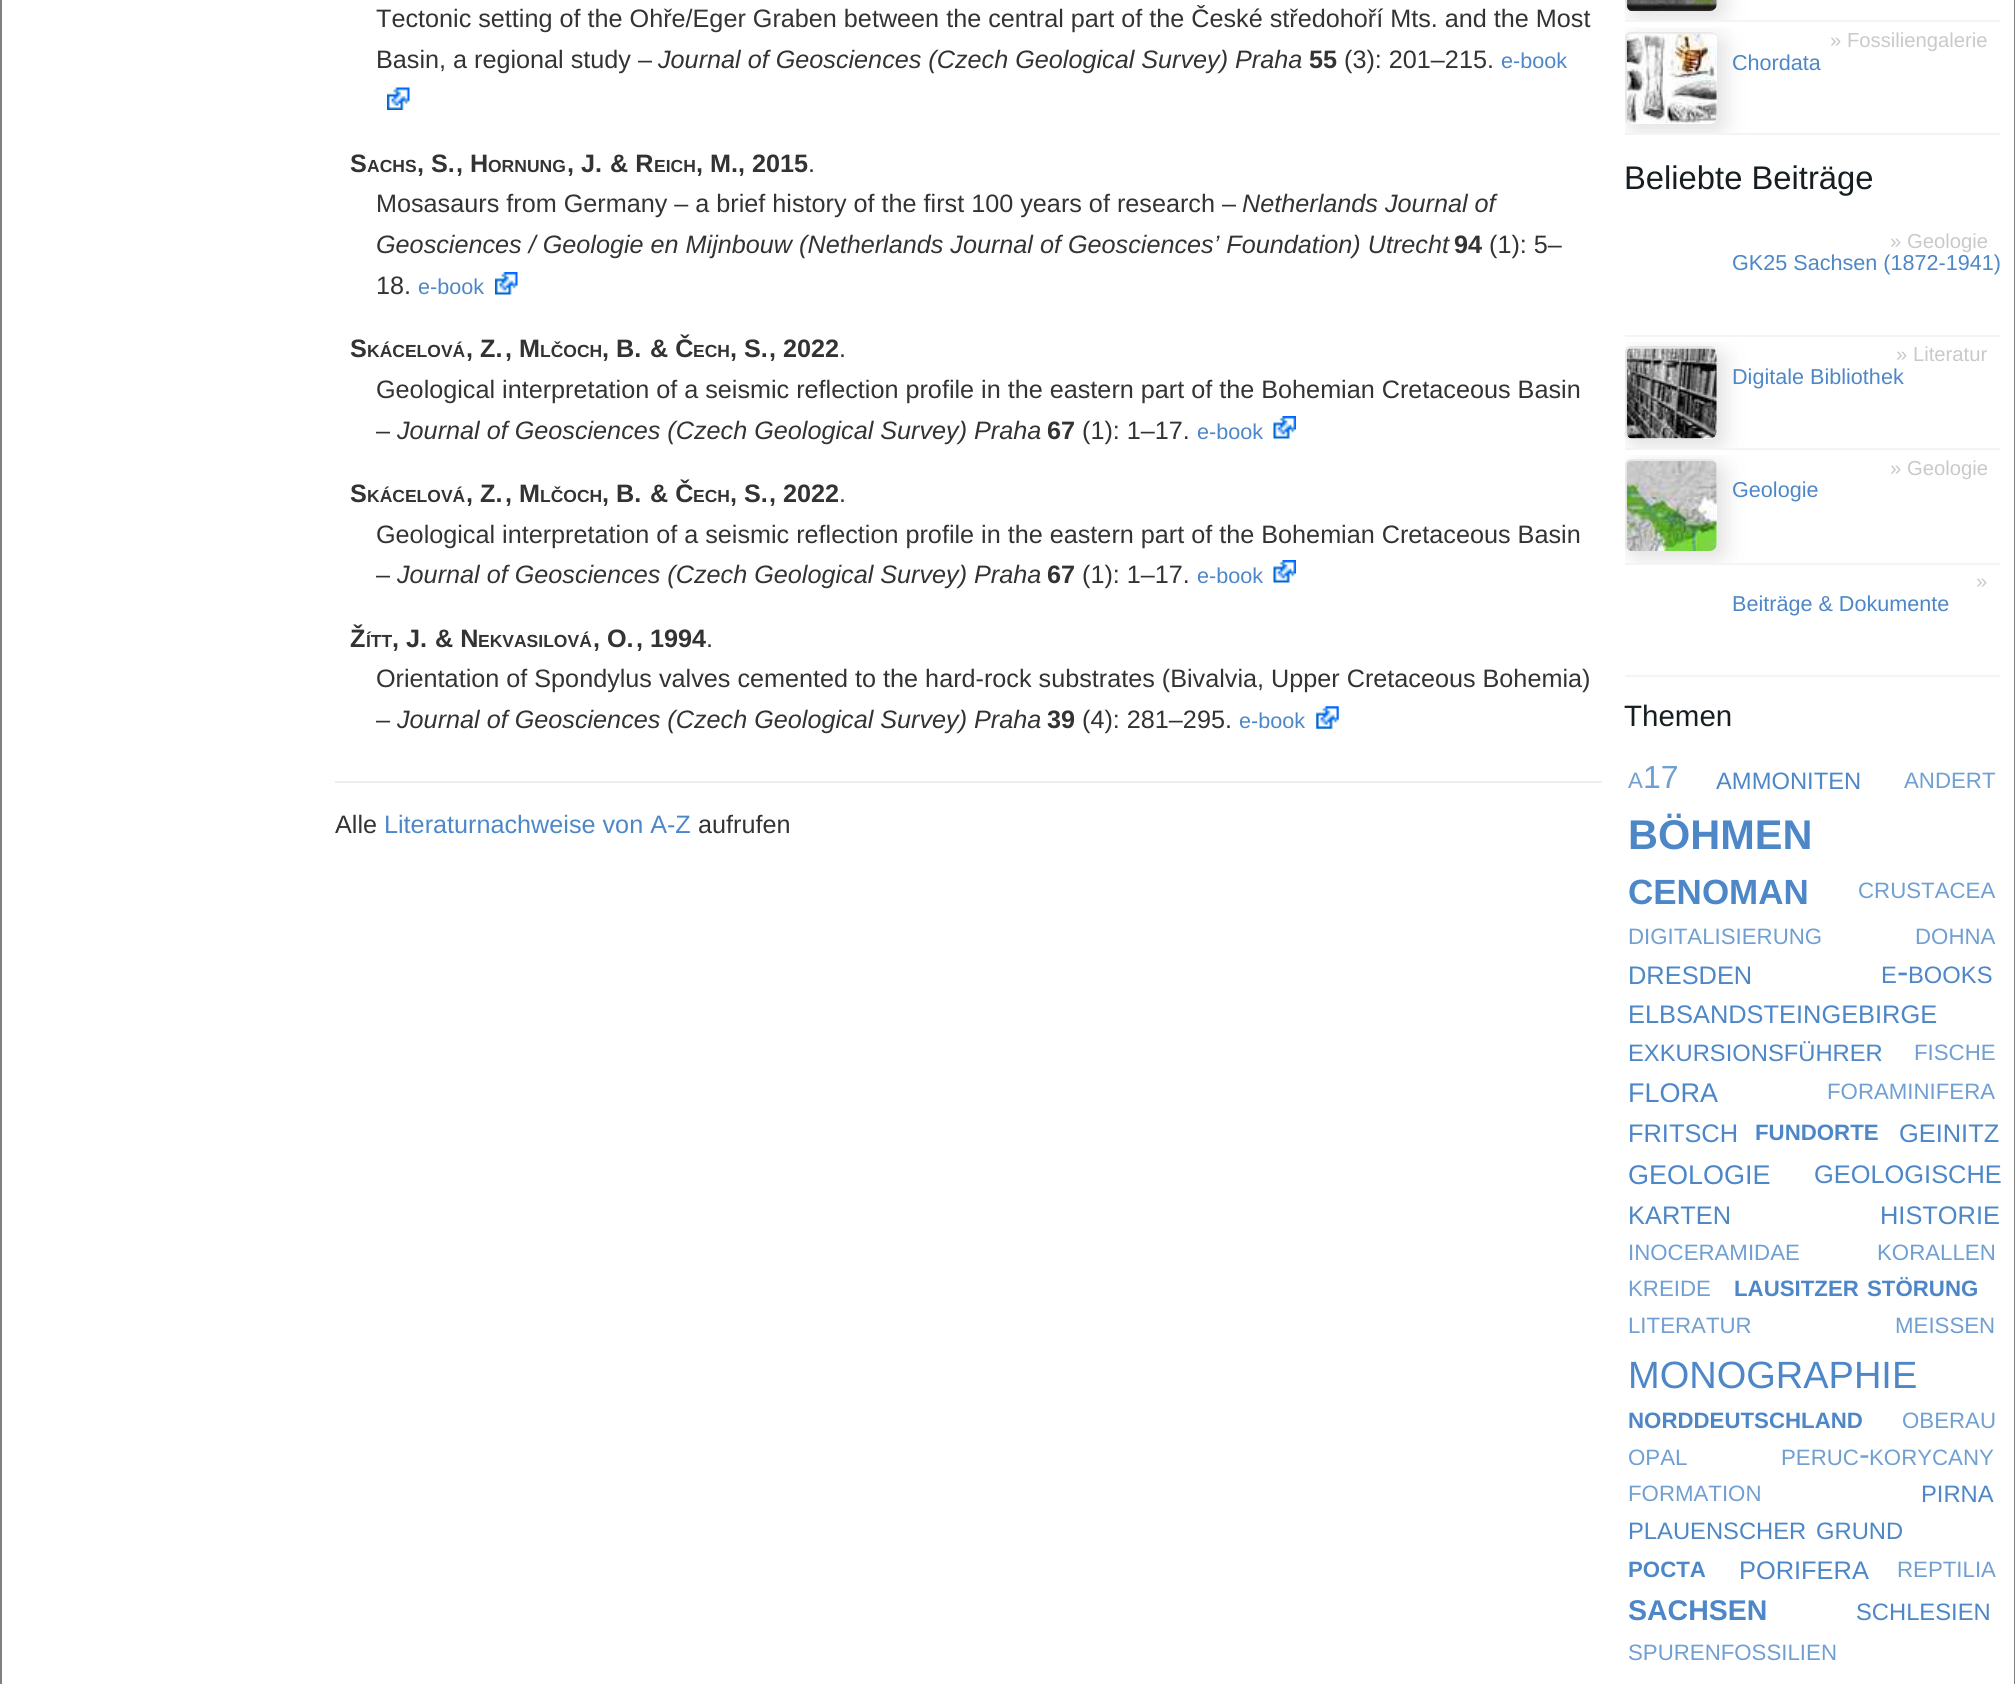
#include <cairo.h>
#include <math.h>
#include <stddef.h>

static cairo_t *c;
static void C(unsigned color){cairo_set_source_rgb(c, (color >> 16) / 255.0, (color >> 8 & 255) / 255.0, (color & 255) / 255.0);}
static void F(const char *family, double size, int italic, int bold){cairo_select_font_face(c, family, italic ? CAIRO_FONT_SLANT_ITALIC : CAIRO_FONT_SLANT_NORMAL,bold ? CAIRO_FONT_WEIGHT_BOLD : CAIRO_FONT_WEIGHT_NORMAL);cairo_set_font_size(c, size);}
static void T(double x, double y, const char *s){cairo_move_to(c, x, y);cairo_show_text(c, s);}
static void R(double x, double y, double w, double h){cairo_rectangle(c, x, y, w, h);cairo_fill(c);}
static void Q(double x, double y, double w, double h, double r){cairo_new_sub_path(c);cairo_arc(c, x + w - r, y + h - r, r, 0, M_PI / 2);cairo_arc(c, x + r, y + h - r, r, M_PI / 2, M_PI);cairo_arc(c, x + r, y + r, r, M_PI, 1.5 * M_PI);cairo_arc(c, x + w - r, y + r, r, 1.5 * M_PI, 2 * M_PI);cairo_close_path(c);}
static void S(double x, double y, double w, double h, double r, double blur, double alpha){cairo_push_group_with_content(c, CAIRO_CONTENT_ALPHA);cairo_set_operator(c, CAIRO_OPERATOR_SOURCE);for (int i = 15; i >= -15 && fmin(w, h) + blur * i / 3 > 0; i -= 2) {double e = blur * i / 6;cairo_set_source_rgba(c, 0, 0, 0, alpha * erfc((i - 1) / 8.5) / 2);Q(x - e, y - e, w + 2 * e, h + 2 * e, fmax(0, fmin(r + e + blur * .6, fmin(w, h) / 2 + e)));cairo_fill(c);}cairo_pattern_t *soft = cairo_pop_group(c);cairo_mask(c, soft);cairo_pattern_destroy(soft);}
static void I(const char *path, double x, double y, double w, double h){cairo_surface_t *image = cairo_image_surface_create_from_png(path);cairo_save(c);cairo_set_source_surface(c, image, x, y);cairo_rectangle(c, x, y, w, h);cairo_fill(c);cairo_restore(c);cairo_surface_destroy(image);}
int main(void) {
cairo_surface_t *surface = cairo_image_surface_create(CAIRO_FORMAT_RGB24, 2015, 1684);
c = cairo_create(surface);
cairo_font_options_t *options = cairo_font_options_create();
cairo_font_options_set_hint_metrics(options, CAIRO_HINT_METRICS_OFF);
cairo_font_options_set_hint_style(options, CAIRO_HINT_STYLE_NONE);
cairo_set_font_options(c, options);
cairo_set_miter_limit(c, 4);
C(0xffffff);
cairo_paint(c);
C(0x808080);
R(2014,0,1,1684);
R(0,0,2,1684);
F("Liberation Sans",25.2,0,0);
C(0x333333);
T(376,27,"Tectonic setting of the Ohře/Eger Graben between the central part of the České středohoří Mts. and the Most");
T(376,68,"Basin, a regional study –");
F("Liberation Sans",25.2,1,0);
T(658,68,"Journal of Geosciences (Czech Geological Survey) Praha");
F("Liberation Sans",25.2,0,1);
T(1309,68,"55");
F("Liberation Sans",25.2,0,0);
T(1344,68,"(3): 201–215.");
F("Liberation Sans",21.6,0,0);
C(0x4d87c7);
T(1501,68,"e-book");
I("1.png",387,87,23,23);
F("Liberation Sans",25.2,0,1);
C(0x333333);
T(350,172,"S");
F("Liberation Sans",17.5,0,1);
T(367,172,"ACHS");
F("Liberation Sans",25.2,0,1);
T(417,172,", S.");
T(456,172,", H");
F("Liberation Sans",17.5,0,1);
T(488,172,"ORNUNG");
F("Liberation Sans",25.2,0,1);
T(567,172,", J.");
T(610,172,"& R");
F("Liberation Sans",17.5,0,1);
T(654,172,"EICH");
F("Liberation Sans",25.2,0,1);
T(696,172,", M.");
T(738,172,", 2015");
F("Liberation Sans",25.2,0,0);
T(808,172,".");
T(376,212,"Mosasaurs from Germany – a brief history of the first 100 years of research –");
F("Liberation Sans",25.2,1,0);
T(1242,212,"Netherlands Journal of");
T(376,253,"Geosciences / Geologie en Mijnbouw (Netherlands Journal of Geosciences’ Foundation) Utrecht");
F("Liberation Sans",25.2,0,1);
T(1454,253,"94");
F("Liberation Sans",25.2,0,0);
T(1489,253,"(1): 5–");
T(376,294,"18.");
F("Liberation Sans",21.6,0,0);
C(0x4d87c7);
T(418,294,"e-book");
I("2.png",495,272,23,23);
F("Liberation Sans",25.2,0,1);
C(0x333333);
T(350,357,"S");
F("Liberation Sans",17.5,0,1);
T(367,357,"KÁCELOVÁ");
F("Liberation Sans",25.2,0,1);
T(466,357,", Z.");
T(505,357,", M");
F("Liberation Sans",17.5,0,1);
T(540,357,"LČOCH");
F("Liberation Sans",25.2,0,1);
T(602,357,", B.");
T(650,357,"& Č");
F("Liberation Sans",17.5,0,1);
T(693,357,"ECH");
F("Liberation Sans",25.2,0,1);
T(730,357,", S.");
T(769,357,", 2022");
F("Liberation Sans",25.2,0,0);
T(839,357,".");
T(376,398,"Geological interpretation of a seismic reflection profile in the eastern part of the Bohemian Cretaceous Basin");
T(376,439,"–");
F("Liberation Sans",25.2,1,0);
T(397,439,"Journal of Geosciences (Czech Geological Survey) Praha");
F("Liberation Sans",25.2,0,1);
T(1047,439,"67");
F("Liberation Sans",25.2,0,0);
T(1082,439,"(1): 1–17.");
F("Liberation Sans",21.6,0,0);
C(0x4d87c7);
T(1197,439,"e-book");
I("3.png",1273,416,23,23);
F("Liberation Sans",25.2,0,1);
C(0x333333);
T(350,502,"S");
F("Liberation Sans",17.5,0,1);
T(367,502,"KÁCELOVÁ");
F("Liberation Sans",25.2,0,1);
T(466,502,", Z.");
T(505,502,", M");
F("Liberation Sans",17.5,0,1);
T(540,502,"LČOCH");
F("Liberation Sans",25.2,0,1);
T(602,502,", B.");
T(650,502,"& Č");
F("Liberation Sans",17.5,0,1);
T(693,502,"ECH");
F("Liberation Sans",25.2,0,1);
T(730,502,", S.");
T(769,502,", 2022");
F("Liberation Sans",25.2,0,0);
T(839,502,".");
T(376,543,"Geological interpretation of a seismic reflection profile in the eastern part of the Bohemian Cretaceous Basin");
T(376,583,"–");
F("Liberation Sans",25.2,1,0);
T(397,583,"Journal of Geosciences (Czech Geological Survey) Praha");
F("Liberation Sans",25.2,0,1);
T(1047,583,"67");
F("Liberation Sans",25.2,0,0);
T(1082,583,"(1): 1–17.");
F("Liberation Sans",21.6,0,0);
C(0x4d87c7);
T(1197,583,"e-book");
I("3.png",1273,560,23,23);
F("Liberation Sans",25.2,0,1);
C(0x333333);
T(350,647,"Ž");
F("Liberation Sans",17.5,0,1);
T(366,647,"ÍTT");
F("Liberation Sans",25.2,0,1);
T(392,647,", J.");
T(435,647,"& N");
F("Liberation Sans",17.5,0,1);
T(478,647,"EKVASILOVÁ");
F("Liberation Sans",25.2,0,1);
T(593,647,", O.");
T(636,647,", 1994");
F("Liberation Sans",25.2,0,0);
T(706,647,".");
T(376,687,"Orientation of Spondylus valves cemented to the hard-rock substrates (Bivalvia, Upper Cretaceous Bohemia)");
T(376,728,"–");
F("Liberation Sans",25.2,1,0);
T(397,728,"Journal of Geosciences (Czech Geological Survey) Praha");
F("Liberation Sans",25.2,0,1);
T(1047,728,"39");
F("Liberation Sans",25.2,0,0);
T(1082,728,"(4): 281–295.");
F("Liberation Sans",21.6,0,0);
C(0x4d87c7);
T(1239,728,"e-book");
I("4.png",1316,706,23,23);
C(0xeeeeee);
R(335,781,1267,2);
F("Liberation Sans",25.2,0,0);
C(0x333333);
T(335,833,"Alle");
C(0x4d87c7);
T(384,833,"Literaturnachweise von A-Z");
C(0x333333);
T(698,833,"aufrufen");
C(0xf4f4f4);
R(1625,20,375,2);
cairo_save(c);
cairo_rectangle(c,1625,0,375,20);
cairo_clip(c);
C(0xd2d2d2);
S(1631,-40,93,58,7,11,.7);
cairo_restore(c);
cairo_save(c);
cairo_rectangle(c,1625,0,375,20);
cairo_clip(c);
C(0xe7e7e7);
cairo_set_fill_rule(c,CAIRO_FILL_RULE_EVEN_ODD);
cairo_new_path(c);
cairo_move_to(c,1631,-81);
cairo_line_to(c,1710,-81);
cairo_curve_to(c,1714,-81,1717,-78,1717,-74);
cairo_line_to(c,1717,4);
cairo_curve_to(c,1717,8,1714,11,1710,11);
cairo_line_to(c,1631,11);
cairo_curve_to(c,1628,11,1624,8,1624,4);
cairo_line_to(c,1624,-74);
cairo_curve_to(c,1624,-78,1628,-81,1631,-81);
cairo_close_path(c);
cairo_move_to(c,1631,-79);
cairo_line_to(c,1710,-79);
cairo_curve_to(c,1714,-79,1717,-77,1717,-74);
cairo_line_to(c,1717,4);
cairo_curve_to(c,1717,8,1714,11,1710,11);
cairo_line_to(c,1631,11);
cairo_curve_to(c,1629,11,1627,8,1627,4);
cairo_line_to(c,1627,-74);
cairo_curve_to(c,1627,-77,1629,-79,1631,-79);
cairo_close_path(c);
cairo_fill(c);
cairo_restore(c);
I("5.png",1626,0,91,11);
R(1625,133,375,2);
F("Liberation Sans",20.25,0,0);
C(0xc9c9c9);
T(1830,47,"» Fossiliengalerie");
cairo_save(c);
cairo_rectangle(c,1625,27,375,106);
cairo_clip(c);
cairo_set_fill_rule(c,CAIRO_FILL_RULE_EVEN_ODD);
cairo_new_path(c);
cairo_move_to(c,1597,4);
cairo_line_to(c,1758,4);
cairo_line_to(c,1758,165);
cairo_line_to(c,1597,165);
cairo_close_path(c);
cairo_move_to(c,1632,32);
cairo_line_to(c,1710,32);
cairo_curve_to(c,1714,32,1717,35,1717,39);
cairo_line_to(c,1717,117);
cairo_curve_to(c,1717,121,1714,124,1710,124);
cairo_line_to(c,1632,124);
cairo_curve_to(c,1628,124,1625,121,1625,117);
cairo_line_to(c,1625,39);
cairo_curve_to(c,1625,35,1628,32,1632,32);
cairo_close_path(c);
cairo_clip(c);
C(0xd2d2d2);
S(1631,38,93,93,7,11,.7);
cairo_restore(c);
cairo_save(c);
cairo_rectangle(c,1625,27,375,106);
cairo_clip(c);
cairo_set_source_rgba(c,0.824,0.824,0.824,0.5);
cairo_set_fill_rule(c,CAIRO_FILL_RULE_EVEN_ODD);
cairo_new_path(c);
cairo_move_to(c,1631,32);
cairo_line_to(c,1710,32);
cairo_curve_to(c,1714,32,1717,35,1717,38);
cairo_line_to(c,1717,117);
cairo_curve_to(c,1717,121,1714,124,1710,124);
cairo_line_to(c,1631,124);
cairo_curve_to(c,1628,124,1624,121,1624,117);
cairo_line_to(c,1624,38);
cairo_curve_to(c,1624,35,1628,32,1631,32);
cairo_close_path(c);
cairo_move_to(c,1631,34);
cairo_line_to(c,1710,34);
cairo_curve_to(c,1714,34,1717,36,1717,38);
cairo_line_to(c,1717,117);
cairo_curve_to(c,1717,121,1714,124,1710,124);
cairo_line_to(c,1631,124);
cairo_curve_to(c,1629,124,1627,121,1627,117);
cairo_line_to(c,1627,38);
cairo_curve_to(c,1627,36,1629,34,1631,34);
cairo_close_path(c);
cairo_fill(c);
cairo_restore(c);
I("6.png",1626,33,91,91);
F("Liberation Sans",21.6,0,0);
C(0x4d87c7);
T(1732,70,"Chordata");
F("Liberation Sans",32.75,0,0);
C(0x161e21);
T(1624,189,"Beliebte Beiträge");
C(0xf4f4f4);
R(1625,335,375,2);
F("Liberation Sans",20.25,0,0);
C(0xc9c9c9);
T(1890,248,"» Geologie");
F("Liberation Sans",21.6,0,0);
C(0x4d87c7);
T(1732,270,"GK25 Sachsen (1872-1941)");
C(0xf4f4f4);
R(1625,448,375,2);
F("Liberation Sans",20.25,0,0);
C(0xc9c9c9);
T(1896,361,"» Literatur");
cairo_save(c);
cairo_rectangle(c,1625,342,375,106);
cairo_clip(c);
cairo_set_fill_rule(c,CAIRO_FILL_RULE_EVEN_ODD);
cairo_new_path(c);
cairo_move_to(c,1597,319);
cairo_line_to(c,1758,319);
cairo_line_to(c,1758,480);
cairo_line_to(c,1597,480);
cairo_close_path(c);
cairo_move_to(c,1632,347);
cairo_line_to(c,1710,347);
cairo_curve_to(c,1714,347,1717,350,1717,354);
cairo_line_to(c,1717,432);
cairo_curve_to(c,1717,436,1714,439,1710,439);
cairo_line_to(c,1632,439);
cairo_curve_to(c,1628,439,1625,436,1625,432);
cairo_line_to(c,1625,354);
cairo_curve_to(c,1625,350,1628,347,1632,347);
cairo_close_path(c);
cairo_clip(c);
C(0xd2d2d2);
S(1631,353,93,93,7,11,.7);
cairo_restore(c);
cairo_save(c);
cairo_rectangle(c,1625,342,375,106);
cairo_clip(c);
cairo_set_source_rgba(c,0.824,0.824,0.824,0.5);
cairo_set_fill_rule(c,CAIRO_FILL_RULE_EVEN_ODD);
cairo_new_path(c);
cairo_move_to(c,1631,346);
cairo_line_to(c,1710,346);
cairo_curve_to(c,1714,346,1717,350,1717,353);
cairo_line_to(c,1717,432);
cairo_curve_to(c,1717,436,1714,439,1710,439);
cairo_line_to(c,1631,439);
cairo_curve_to(c,1628,439,1624,436,1624,432);
cairo_line_to(c,1624,353);
cairo_curve_to(c,1624,350,1628,346,1631,346);
cairo_close_path(c);
cairo_move_to(c,1631,349);
cairo_line_to(c,1710,349);
cairo_curve_to(c,1714,349,1717,351,1717,353);
cairo_line_to(c,1717,432);
cairo_curve_to(c,1717,436,1714,439,1710,439);
cairo_line_to(c,1631,439);
cairo_curve_to(c,1629,439,1627,436,1627,432);
cairo_line_to(c,1627,353);
cairo_curve_to(c,1627,351,1629,349,1631,349);
cairo_close_path(c);
cairo_fill(c);
cairo_restore(c);
I("7.png",1626,348,91,91);
F("Liberation Sans",21.6,0,0);
C(0x4d87c7);
T(1732,384,"Digitale Bibliothek");
C(0xf4f4f4);
R(1625,563,375,2);
F("Liberation Sans",20.25,0,0);
C(0xc9c9c9);
T(1890,475,"» Geologie");
cairo_save(c);
cairo_rectangle(c,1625,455,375,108);
cairo_clip(c);
cairo_set_fill_rule(c,CAIRO_FILL_RULE_EVEN_ODD);
cairo_new_path(c);
cairo_move_to(c,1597,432);
cairo_line_to(c,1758,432);
cairo_line_to(c,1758,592);
cairo_line_to(c,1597,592);
cairo_close_path(c);
cairo_move_to(c,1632,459);
cairo_line_to(c,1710,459);
cairo_curve_to(c,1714,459,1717,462,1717,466);
cairo_line_to(c,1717,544);
cairo_curve_to(c,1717,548,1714,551,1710,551);
cairo_line_to(c,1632,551);
cairo_curve_to(c,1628,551,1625,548,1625,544);
cairo_line_to(c,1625,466);
cairo_curve_to(c,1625,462,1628,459,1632,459);
cairo_close_path(c);
cairo_clip(c);
C(0xd2d2d2);
S(1631,466,93,92,7,11,.7);
cairo_restore(c);
cairo_save(c);
cairo_rectangle(c,1625,455,375,108);
cairo_clip(c);
cairo_set_source_rgba(c,0.824,0.824,0.824,0.5);
cairo_set_fill_rule(c,CAIRO_FILL_RULE_EVEN_ODD);
cairo_new_path(c);
cairo_move_to(c,1631,459);
cairo_line_to(c,1710,459);
cairo_curve_to(c,1714,459,1717,462,1717,466);
cairo_line_to(c,1717,544);
cairo_curve_to(c,1717,548,1714,551,1710,551);
cairo_line_to(c,1631,551);
cairo_curve_to(c,1628,551,1624,548,1624,544);
cairo_line_to(c,1624,466);
cairo_curve_to(c,1624,462,1628,459,1631,459);
cairo_close_path(c);
cairo_move_to(c,1631,461);
cairo_line_to(c,1710,461);
cairo_curve_to(c,1714,461,1717,463,1717,466);
cairo_line_to(c,1717,544);
cairo_curve_to(c,1717,548,1714,551,1710,551);
cairo_line_to(c,1631,551);
cairo_curve_to(c,1629,551,1627,548,1627,544);
cairo_line_to(c,1627,466);
cairo_curve_to(c,1627,463,1629,461,1631,461);
cairo_close_path(c);
cairo_fill(c);
cairo_restore(c);
I("8.png",1626,461,91,90);
F("Liberation Sans",21.6,0,0);
C(0x4d87c7);
T(1732,497,"Geologie");
C(0xf4f4f4);
R(1625,675,375,2);
F("Liberation Sans",20.25,0,0);
C(0xc9c9c9);
T(1976,588,"»");
F("Liberation Sans",21.6,0,0);
C(0x4d87c7);
T(1732,611,"Beiträge & Dokumente");
F("Liberation Sans",29.5,0,0);
C(0x161e21);
T(1624,726,"Themen");
F("Liberation Sans",22.25,0,0);
C(0x709fd2);
T(1628,788,"A");
F("Liberation Sans",32,0,0);
T(1643,788,"17");
F("Liberation Sans",23.75,0,0);
C(0x4d87c7);
T(1716,789,"AMMONITEN");
F("Liberation Sans",22.25,0,0);
C(0x709fd2);
T(1904,788,"ANDERT");
F("Liberation Sans",41.5,0,1);
C(0x4d87c7);
T(1628,849,"BÖHMEN");
F("Liberation Sans",35,0,1);
T(1628,904,"CENOMAN");
F("Liberation Sans",22.25,0,0);
C(0x709fd2);
T(1858,898,"CRUSTACEA");
T(1628,944,"DIGITALISIERUNG");
T(1915,944,"DOHNA");
F("Liberation Sans",25.4,0,0);
C(0x4d87c7);
T(1628,984,"DRESDEN");
F("Liberation Sans",23.75,0,0);
T(1881,983,"E");
F("Liberation Sans",34,0,0);
T(1897,983,"-");
F("Liberation Sans",23.75,0,0);
T(1908,983,"BOOKS");
F("Liberation Sans",25.4,0,0);
T(1628,1023,"ELBSANDSTEINGEBIRGE");
F("Liberation Sans",23.75,0,0);
T(1628,1061,"EXKURSIONSFÜHRER");
F("Liberation Sans",22.25,0,0);
C(0x709fd2);
T(1914,1060,"FISCHE");
F("Liberation Sans",27,0,0);
C(0x4d87c7);
T(1628,1102,"FLORA");
F("Liberation Sans",22.25,0,0);
C(0x709fd2);
T(1827,1099,"FORAMINIFERA");
F("Liberation Sans",25.4,0,0);
C(0x4d87c7);
T(1628,1142,"FRITSCH");
F("Liberation Sans",22.25,0,1);
T(1755,1140,"FUNDORTE");
F("Liberation Sans",25.4,0,0);
T(1899,1142,"GEINITZ");
F("Liberation Sans",27,0,0);
T(1628,1184,"GEOLOGIE");
F("Liberation Sans",25.4,0,0);
T(1814,1183,"GEOLOGISCHE");
T(1628,1224,"KARTEN");
T(1880,1224,"HISTORIE");
F("Liberation Sans",22.25,0,0);
C(0x709fd2);
T(1628,1260,"INOCERAMIDAE");
T(1877,1260,"KORALLEN");
T(1628,1296,"KREIDE");
F("Liberation Sans",22.25,0,1);
C(0x4d87c7);
T(1734,1296,"LAUSITZER");
T(1867,1296,"STÖRUNG");
F("Liberation Sans",22.25,0,0);
C(0x709fd2);
T(1628,1333,"LITERATUR");
T(1895,1333,"MEISSEN");
F("Liberation Sans",38,0,0);
C(0x4d87c7);
T(1628,1388,"MONOGRAPHIE");
F("Liberation Sans",22.25,0,1);
T(1628,1428,"NORDDEUTSCHLAND");
F("Liberation Sans",22.25,0,0);
C(0x709fd2);
T(1902,1428,"OBERAU");
T(1628,1465,"OPAL");
T(1781,1465,"PERUC");
F("Liberation Sans",32,0,0);
T(1859,1465,"-");
F("Liberation Sans",22.25,0,0);
T(1869,1465,"KORYCANY");
T(1628,1501,"FORMATION");
F("Liberation Sans",23.75,0,0);
C(0x4d87c7);
T(1921,1502,"PIRNA");
T(1628,1539,"PLAUENSCHER");
T(1816,1539,"GRUND");
F("Liberation Sans",22.25,0,1);
T(1628,1577,"POCTA");
F("Liberation Sans",25.4,0,0);
T(1739,1579,"PORIFERA");
F("Liberation Sans",22.25,0,0);
C(0x709fd2);
T(1897,1577,"REPTILIA");
F("Liberation Sans",28.5,0,1);
C(0x4d87c7);
T(1628,1620,"SACHSEN");
F("Liberation Sans",23.75,0,0);
T(1856,1620,"SCHLESIEN");
F("Liberation Sans",22.25,0,0);
C(0x709fd2);
T(1628,1660,"SPURENFOSSILIEN");
cairo_surface_write_to_png(surface, "o.png");
cairo_font_options_destroy(options);
cairo_destroy(c);
cairo_surface_destroy(surface);
return 0;
}
